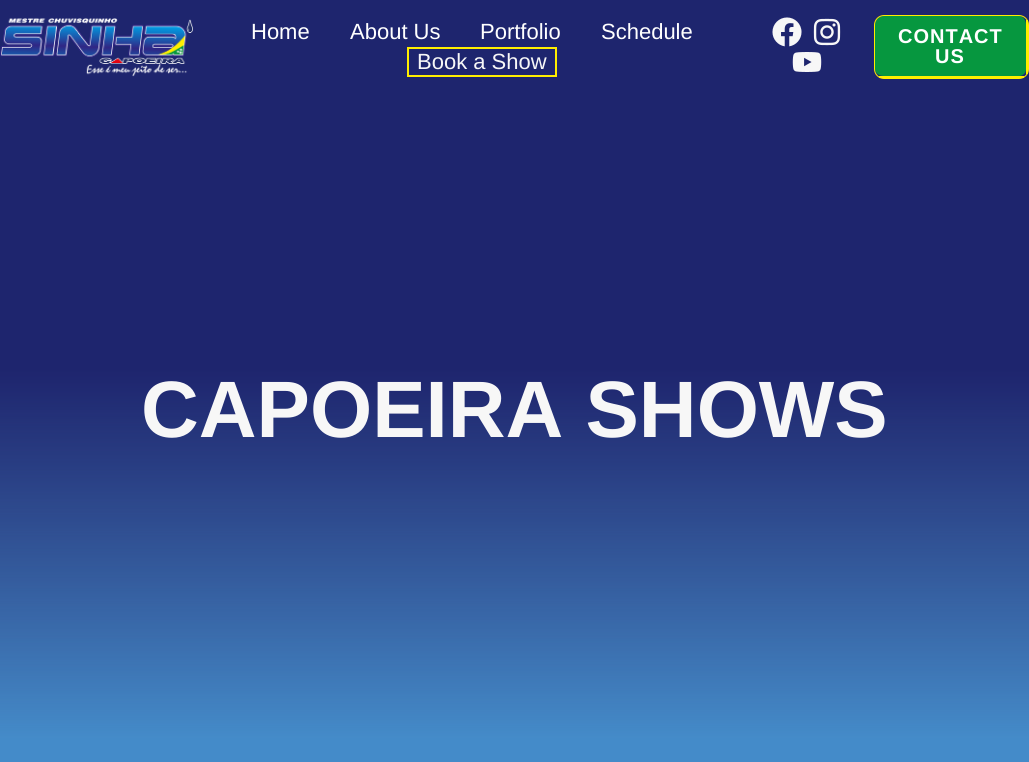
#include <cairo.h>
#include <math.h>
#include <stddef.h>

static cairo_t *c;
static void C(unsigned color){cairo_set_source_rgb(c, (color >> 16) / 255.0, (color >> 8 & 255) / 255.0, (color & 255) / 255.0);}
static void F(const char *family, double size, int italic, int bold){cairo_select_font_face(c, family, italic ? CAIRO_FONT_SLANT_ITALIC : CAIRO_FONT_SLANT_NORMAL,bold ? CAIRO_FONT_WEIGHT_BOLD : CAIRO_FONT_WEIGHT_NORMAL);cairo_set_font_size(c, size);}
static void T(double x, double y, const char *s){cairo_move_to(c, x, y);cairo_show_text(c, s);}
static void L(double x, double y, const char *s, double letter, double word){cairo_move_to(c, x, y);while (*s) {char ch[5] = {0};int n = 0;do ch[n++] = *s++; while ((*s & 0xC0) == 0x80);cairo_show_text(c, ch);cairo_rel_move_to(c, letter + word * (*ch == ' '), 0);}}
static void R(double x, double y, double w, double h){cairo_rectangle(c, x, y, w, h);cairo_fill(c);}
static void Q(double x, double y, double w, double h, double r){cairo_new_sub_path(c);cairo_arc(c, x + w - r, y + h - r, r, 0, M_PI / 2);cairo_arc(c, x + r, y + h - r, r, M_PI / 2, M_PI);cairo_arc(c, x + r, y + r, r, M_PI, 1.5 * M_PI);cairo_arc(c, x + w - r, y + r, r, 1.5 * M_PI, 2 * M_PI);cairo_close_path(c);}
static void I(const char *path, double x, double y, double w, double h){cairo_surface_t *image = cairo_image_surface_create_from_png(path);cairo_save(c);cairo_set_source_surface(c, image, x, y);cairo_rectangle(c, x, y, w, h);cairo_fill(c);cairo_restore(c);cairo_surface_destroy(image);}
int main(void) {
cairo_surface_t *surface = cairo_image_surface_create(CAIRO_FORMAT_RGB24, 1029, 762);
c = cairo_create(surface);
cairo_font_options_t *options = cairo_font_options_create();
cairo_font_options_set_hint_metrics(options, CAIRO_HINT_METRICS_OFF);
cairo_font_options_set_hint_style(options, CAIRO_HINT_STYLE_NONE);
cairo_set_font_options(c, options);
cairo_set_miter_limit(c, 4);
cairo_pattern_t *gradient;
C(0xffffff);
cairo_paint(c);
gradient = cairo_pattern_create_linear(515,0,515,739);
cairo_pattern_add_color_stop_rgba(gradient,.5,0.106,0.176,0.478,1);
cairo_pattern_add_color_stop_rgba(gradient,1,0.267,0.545,0.788,1);
cairo_set_source(c,gradient);
cairo_pattern_destroy(gradient);
R(0,0,1029,735);
gradient = cairo_pattern_create_linear(515,0,515,739);
cairo_pattern_add_color_stop_rgba(gradient,.5,0.133,0.106,0.373,.45);
cairo_pattern_add_color_stop_rgba(gradient,1,0.267,0.545,0.788,1);
cairo_set_source(c,gradient);
cairo_pattern_destroy(gradient);
R(0,0,1029,739);
I("1.png",0,18,193,59);
F("Liberation Sans",22,0,0);
C(0xffffff);
T(251,39,"Home");
T(350,39,"About Us");
T(480,39,"Portfolio");
T(601,39,"Schedule");
C(0xffee00);
R(407,47,150,2);
R(407,47,2,30);
R(555,47,2,30);
R(407,75,150,2);
C(0xf7f7f7);
T(417,69,"Book a Show");
I("2.png",772,17,30,30);
I("3.png",813,18,28,28);
I("4.png",792,52,30,20);
C(0x06973f);
cairo_new_path(c);
cairo_move_to(c,884,16);
cairo_line_to(c,1019,16);
cairo_curve_to(c,1023,16,1026,20,1026,25);
cairo_line_to(c,1026,69);
cairo_curve_to(c,1026,73,1023,76,1019,76);
cairo_line_to(c,884,76);
cairo_curve_to(c,879,76,875,73,875,69);
cairo_line_to(c,875,25);
cairo_curve_to(c,875,20,879,16,884,16);
cairo_close_path(c);
cairo_fill(c);
Q(874.5,15.5,154,63,9.5);
C(0xffee00);
cairo_set_line_width(c,1);
cairo_stroke(c);
R(1026,20,2,54);
R(879,76,145,2);
F("Liberation Sans",20,0,1);
C(0xffffff);
L(898,43,"CONTACT",1,0);
L(935,63,"US",1,0);
F("Liberation Sans",80,0,1);
C(0xf7f7f7);
T(141,437,"CAPOEIRA SHOWS");
C(0x448bc9);
R(0,739,1029,23);
cairo_surface_write_to_png(surface, "o.png");
cairo_font_options_destroy(options);
cairo_destroy(c);
cairo_surface_destroy(surface);
return 0;
}
